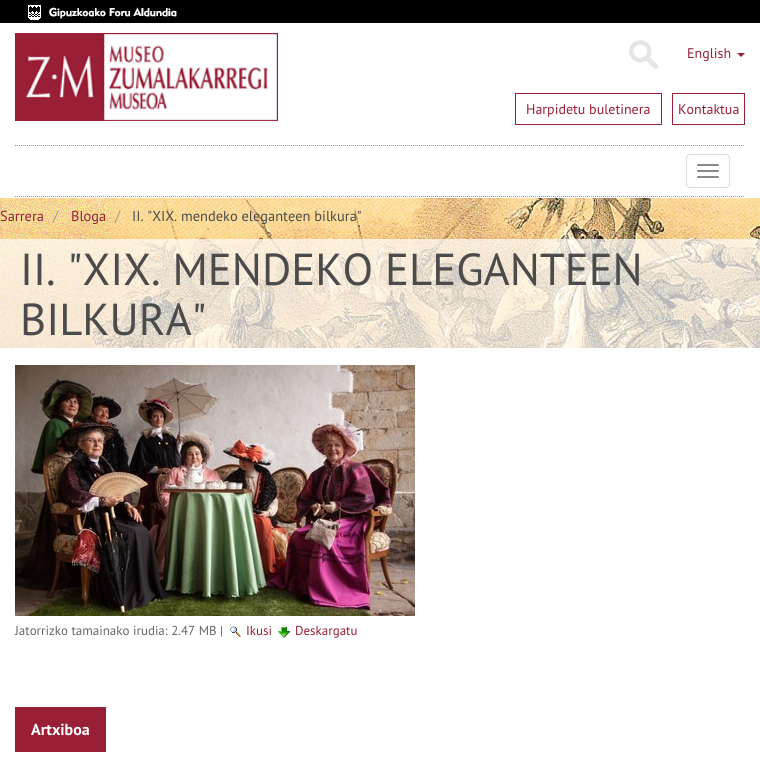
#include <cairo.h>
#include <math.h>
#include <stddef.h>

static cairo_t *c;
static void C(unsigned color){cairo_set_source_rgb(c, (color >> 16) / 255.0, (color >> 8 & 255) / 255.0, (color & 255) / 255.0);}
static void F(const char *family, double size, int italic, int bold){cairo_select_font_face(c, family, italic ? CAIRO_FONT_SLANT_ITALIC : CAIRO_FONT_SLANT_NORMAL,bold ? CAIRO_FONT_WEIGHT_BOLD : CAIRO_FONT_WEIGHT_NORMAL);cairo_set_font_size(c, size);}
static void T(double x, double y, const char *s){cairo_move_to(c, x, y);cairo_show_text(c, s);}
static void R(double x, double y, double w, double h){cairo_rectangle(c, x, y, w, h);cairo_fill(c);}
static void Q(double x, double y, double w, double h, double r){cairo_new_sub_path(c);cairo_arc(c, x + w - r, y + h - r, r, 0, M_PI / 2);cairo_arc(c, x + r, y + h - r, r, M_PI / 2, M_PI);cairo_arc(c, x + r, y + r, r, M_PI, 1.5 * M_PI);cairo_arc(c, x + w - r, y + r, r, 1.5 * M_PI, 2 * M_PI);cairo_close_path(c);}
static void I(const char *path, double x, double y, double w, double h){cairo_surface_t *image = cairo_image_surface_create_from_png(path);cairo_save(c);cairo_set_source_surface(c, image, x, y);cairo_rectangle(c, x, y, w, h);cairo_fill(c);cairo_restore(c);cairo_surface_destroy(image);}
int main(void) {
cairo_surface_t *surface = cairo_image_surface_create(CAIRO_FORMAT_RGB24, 760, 769);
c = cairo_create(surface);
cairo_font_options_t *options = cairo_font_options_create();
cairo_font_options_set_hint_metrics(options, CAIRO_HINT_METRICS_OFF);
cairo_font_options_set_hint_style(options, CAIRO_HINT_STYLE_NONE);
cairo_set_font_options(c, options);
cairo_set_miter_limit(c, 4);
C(0xffffff);
cairo_paint(c);
C(0x000000);
R(0,0,760,23);
I("1.png",28,5,149,15);
I("2.png",15,33,263,88);
I("3.png",629,40,29,29);
F("PT Sans",14,0,0);
C(0x991f36);
T(687,58,"English");
cairo_new_path(c);
cairo_move_to(c,737,53);
cairo_line_to(c,745,53);
cairo_line_to(c,741,57);
cairo_close_path(c);
cairo_fill(c);
cairo_rectangle(c,515.5,93.5,146,31);
cairo_set_line_width(c,1);
cairo_stroke(c);
T(526,114,"Harpidetu buletinera");
cairo_rectangle(c,672.5,93.5,72,31);
cairo_stroke(c);
T(678,114,"Kontaktua");
cairo_new_path(c);
cairo_move_to(c,15,145.5);
cairo_line_to(c,745,145.5);
C(0x999999);
cairo_set_dash(c,(double[]){1,1},2,0);
cairo_stroke(c);
cairo_new_path(c);
cairo_move_to(c,15,196.5);
cairo_line_to(c,745,196.5);
cairo_stroke(c);
Q(686.5,154.5,43,33,3.5);
C(0xdddddd);
cairo_set_dash(c,NULL,0,0);
cairo_stroke(c);
C(0x888888);
Q(697,164,22,2,1);
cairo_fill(c);
Q(697,170,22,2,1);
cairo_fill(c);
Q(697,176,22,2,1);
cairo_fill(c);
I("4.png",0,198,760,150);
F("PT Sans",14.4,0,0);
C(0x991f36);
T(0,221,"Sarrera");
C(0x999999);
T(53,221,"/");
C(0x991f36);
T(71,221,"Bloga");
C(0x999999);
T(115,221,"/");
C(0x4b4b4b);
T(132,221,"II. \"XIX. mendeko eleganteen bilkura\"");
cairo_set_source_rgba(c,1,1,1,0.7);
R(0,239,760,109);
F("PT Sans",44.75,0,0);
C(0x4b4b4b);
T(20,285,"II. \"XIX. MENDEKO ELEGANTEEN");
T(20,335,"BILKURA\"");
I("5.png",15,365,400,251);
F("PT Sans",13,0,0);
C(0x666666);
T(15,635,"Jatorrizko tamainako irudia: 2.47 MB |");
I("6.png",230,626,11,11);
C(0x991f36);
T(246,635,"Ikusi");
I("7.png",278,627,12,11);
T(295,635,"Deskargatu");
R(15,707,91,45);
F("PT Sans",16,0,1);
C(0xffffff);
T(31,735,"Artxiboa");
cairo_surface_write_to_png(surface, "o.png");
cairo_font_options_destroy(options);
cairo_destroy(c);
cairo_surface_destroy(surface);
return 0;
}
